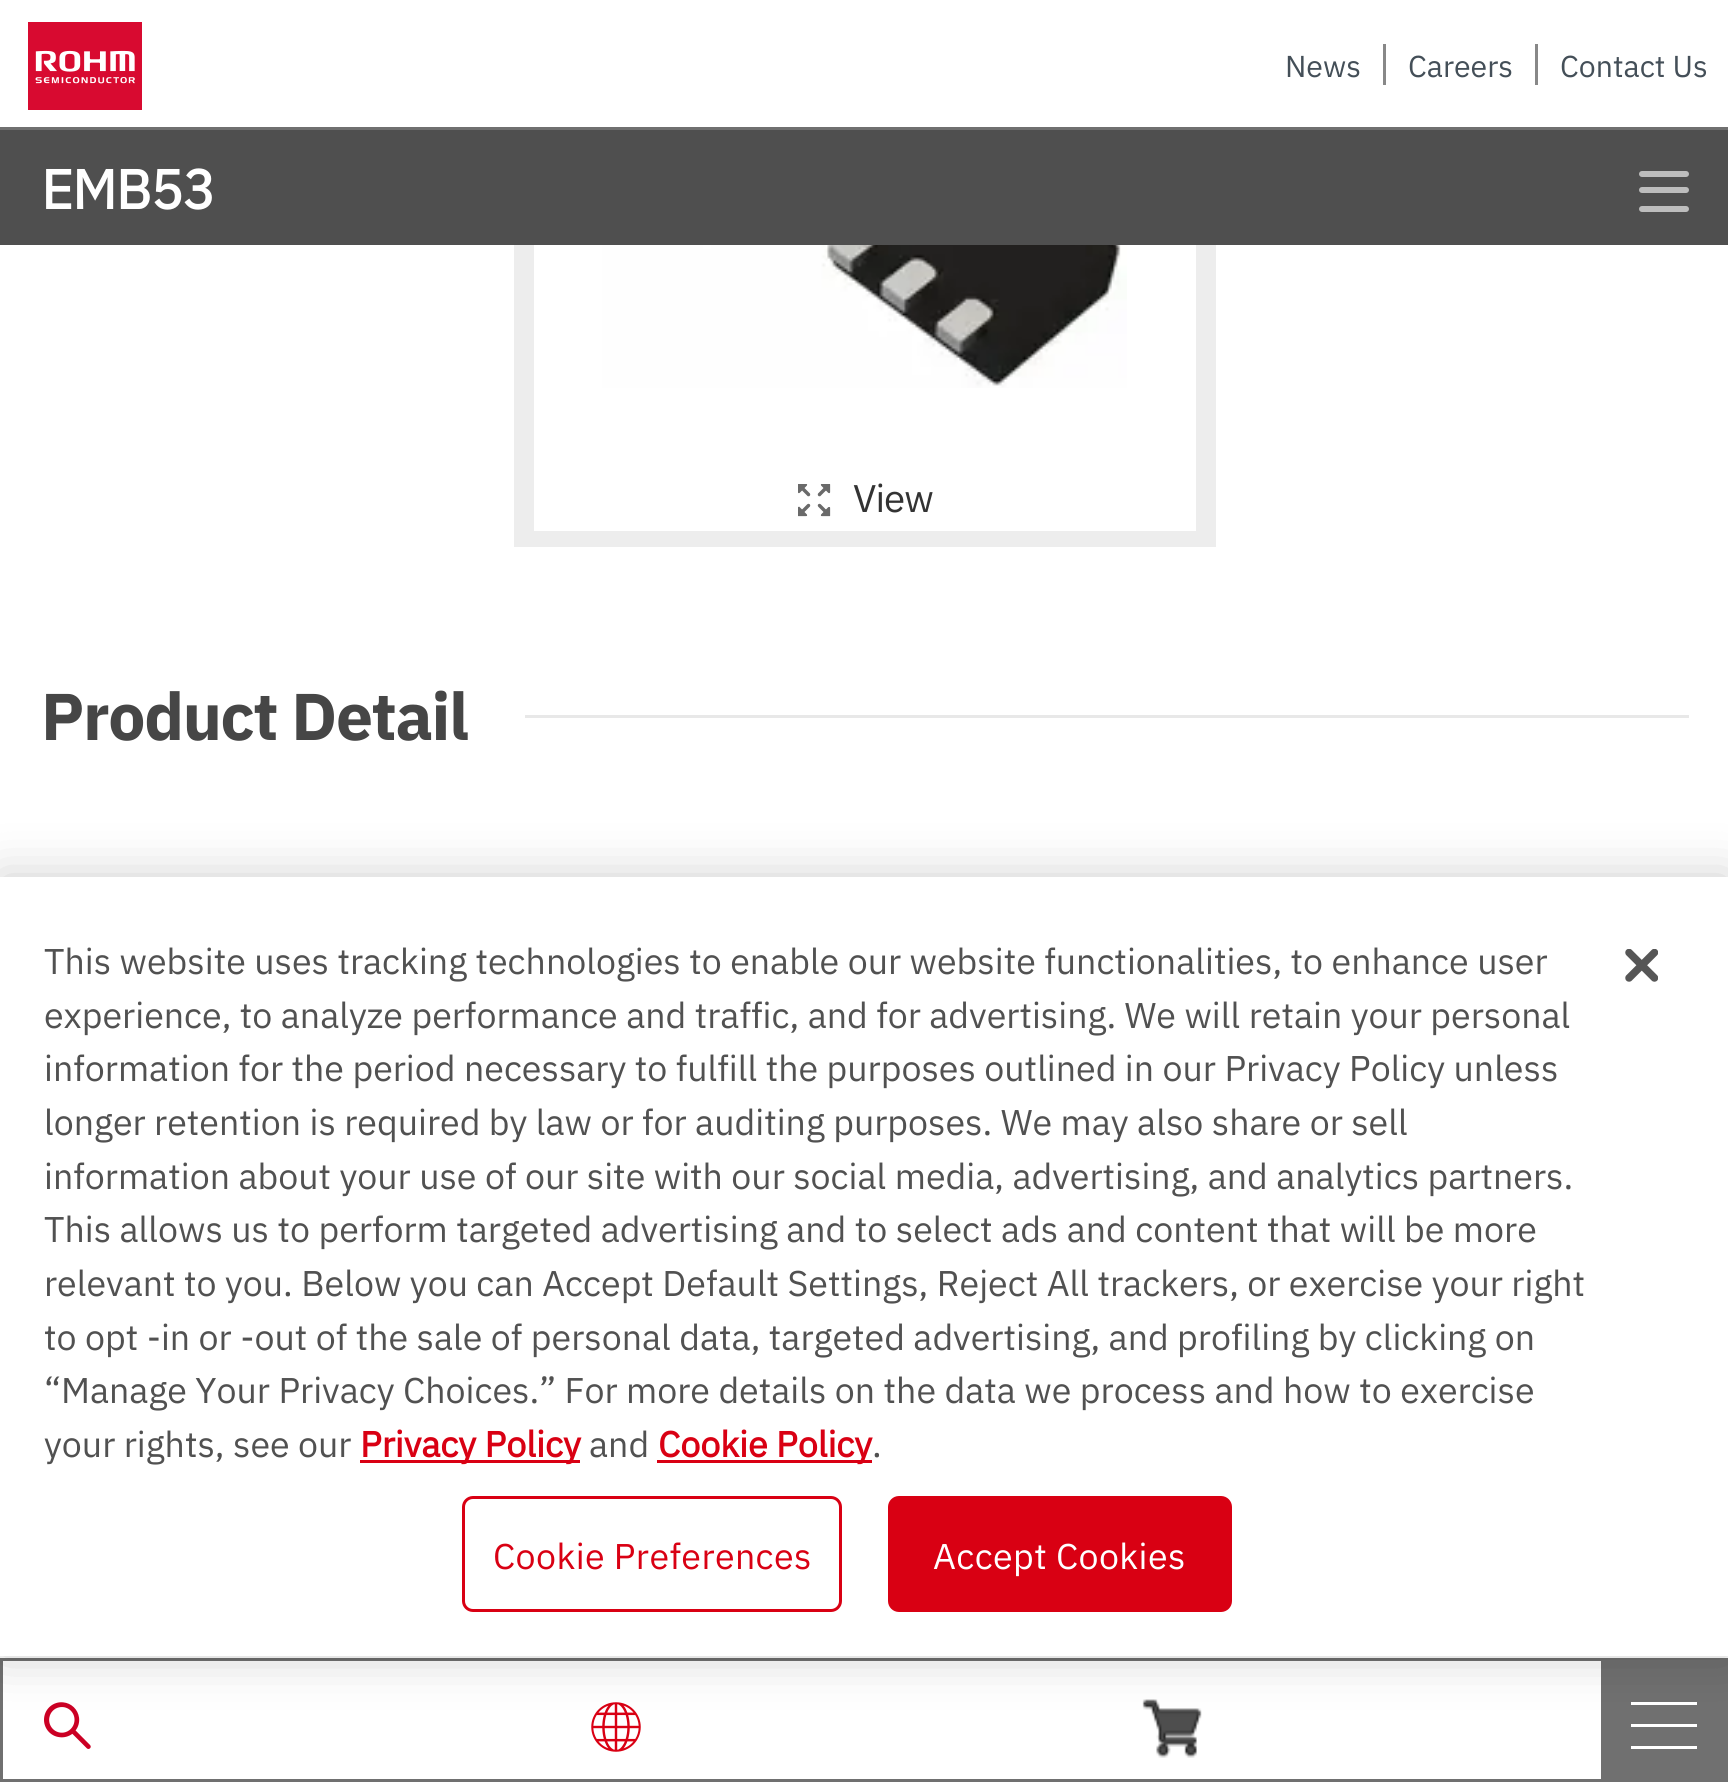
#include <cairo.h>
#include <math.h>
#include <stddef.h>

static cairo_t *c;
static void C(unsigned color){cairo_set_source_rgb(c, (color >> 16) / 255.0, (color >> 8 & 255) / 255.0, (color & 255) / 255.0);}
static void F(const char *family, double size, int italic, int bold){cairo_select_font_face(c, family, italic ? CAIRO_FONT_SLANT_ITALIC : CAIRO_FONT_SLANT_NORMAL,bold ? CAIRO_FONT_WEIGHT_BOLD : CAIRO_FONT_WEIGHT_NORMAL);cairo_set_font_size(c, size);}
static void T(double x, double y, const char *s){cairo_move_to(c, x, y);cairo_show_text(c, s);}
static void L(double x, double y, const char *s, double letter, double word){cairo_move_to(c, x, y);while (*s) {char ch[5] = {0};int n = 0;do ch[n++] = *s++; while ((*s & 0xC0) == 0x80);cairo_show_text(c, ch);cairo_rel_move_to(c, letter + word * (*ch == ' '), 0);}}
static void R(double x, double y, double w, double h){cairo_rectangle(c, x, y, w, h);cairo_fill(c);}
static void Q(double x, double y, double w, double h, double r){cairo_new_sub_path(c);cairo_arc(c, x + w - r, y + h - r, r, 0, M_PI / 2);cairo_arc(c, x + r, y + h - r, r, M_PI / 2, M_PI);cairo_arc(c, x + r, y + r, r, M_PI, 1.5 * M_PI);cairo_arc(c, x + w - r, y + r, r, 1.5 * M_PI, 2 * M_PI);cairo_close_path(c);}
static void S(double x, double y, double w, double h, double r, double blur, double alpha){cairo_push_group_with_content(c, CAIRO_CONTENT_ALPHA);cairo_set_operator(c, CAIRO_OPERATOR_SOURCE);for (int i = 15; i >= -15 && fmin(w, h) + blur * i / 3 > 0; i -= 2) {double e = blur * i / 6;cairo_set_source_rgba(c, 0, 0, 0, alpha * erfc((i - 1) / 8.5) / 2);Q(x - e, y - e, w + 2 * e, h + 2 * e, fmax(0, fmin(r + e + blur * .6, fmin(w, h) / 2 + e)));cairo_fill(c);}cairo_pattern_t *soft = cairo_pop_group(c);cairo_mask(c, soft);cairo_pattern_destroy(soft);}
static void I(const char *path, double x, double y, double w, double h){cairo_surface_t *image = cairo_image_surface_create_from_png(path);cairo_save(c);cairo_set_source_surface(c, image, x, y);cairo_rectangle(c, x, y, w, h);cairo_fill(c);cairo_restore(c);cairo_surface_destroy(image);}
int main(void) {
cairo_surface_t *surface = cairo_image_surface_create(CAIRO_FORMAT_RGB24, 1728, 1782);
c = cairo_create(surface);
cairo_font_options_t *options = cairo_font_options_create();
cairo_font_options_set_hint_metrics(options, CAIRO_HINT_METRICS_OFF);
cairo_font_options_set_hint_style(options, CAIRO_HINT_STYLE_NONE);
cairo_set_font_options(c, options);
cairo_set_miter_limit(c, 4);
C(0xffffff);
cairo_paint(c);
C(0x707070);
R(0,127,1728,3);
I("1.png",28,22,114,88);
F("IBM Plex Sans",30.25,0,0);
C(0x444f58);
T(1285,77,"News");
C(0x888888);
R(1383,44,3,41);
C(0x444f58);
T(1408,77,"Careers");
C(0x888888);
R(1535,44,3,41);
C(0x444f58);
T(1560,77,"Contact Us");
cairo_rectangle(c,1.5,1659.5,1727,121);
C(0x707070);
cairo_set_line_width(c,3);
cairo_stroke(c);
I("2.png",44,1702,47,47);
I("3.png",591,1702,50,50);
I("4.png",1142,1699,60,59);
R(1601,1661,126,118);
C(0xffffff);
R(1631,1702,66,3);
R(1631,1724,66,3);
R(1631,1746,66,3);
C(0x4f4f4f);
R(0,130,1728,115);
F("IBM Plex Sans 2",55,0,1);
C(0xffffff);
L(41,209,"EMB53",-1,0);
C(0xbdbdbd);
Q(1639,171,50,6,3);
cairo_fill(c);
Q(1639,187,50,6,3);
cairo_fill(c);
Q(1639,206,50,6,3);
cairo_fill(c);
C(0xededed);
R(514,245,702,302);
C(0xffffff);
R(534,245,662,286);
I("5.png",602,245,525,143);
I("6.png",798,484,33,33);
F("IBM Plex Sans",38.5,0,0);
C(0x333333);
L(853,512,"View",-1,0);
F("IBM Plex Sans",66,0,1);
C(0x464646);
L(41,740,"Product Detail",-1.4,0);
C(0xe8e8e8);
R(525,715,1164,3);
C(0x000000);
S(0,877,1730,779,0,25,.2);
C(0xffffff);
R(0,877,1728,779);
F("IBM Plex Sans",35.75,0,0);
C(0x515151);
T(44,974,"This website uses tracking technologies to enable our website functionalities, to enhance user");
T(44,1028,"experience, to analyze performance and traffic, and for advertising. We will retain your personal");
T(44,1081,"information for the period necessary to fulfill the purposes outlined in our Privacy Policy unless");
T(44,1135,"longer retention is required by law or for auditing purposes. We may also share or sell");
T(44,1189,"information about your use of our site with our social media, advertising, and analytics partners.");
T(44,1242,"This allows us to perform targeted advertising and to select ads and content that will be more");
T(44,1296,"relevant to you. Below you can Accept Default Settings, Reject All trackers, or exercise your right");
T(44,1350,"to opt -in or -out of the sale of personal data, targeted advertising, and profiling by clicking on");
T(44,1403,"“Manage Your Privacy Choices.” For more details on the data we process and how to exercise");
T(44,1457,"your rights, see our");
C(0xd90013);
R(360,1460,220,3);
F("IBM Plex Sans 2",35.75,0,1);
T(360,1457,"Privacy Policy");
F("IBM Plex Sans",35.75,0,0);
C(0x515151);
T(589,1457,"and");
C(0xd90013);
R(657,1460,215,3);
F("IBM Plex Sans 2",35.75,0,1);
T(658,1457,"Cookie Policy");
F("IBM Plex Sans",35.75,0,0);
C(0x515151);
T(872,1457,".");
Q(463.5,1497.5,377,113,9.5);
C(0xd90013);
cairo_stroke(c);
L(493,1569,"Cookie Preferences",.4,0);
Q(889.5,1497.5,341,113,9.5);
cairo_fill_preserve(c);
cairo_stroke(c);
C(0xffffff);
L(933,1569,"Accept Cookies",.4,0);
I("7.png",1625,949,33,33);
cairo_surface_write_to_png(surface, "o.png");
cairo_font_options_destroy(options);
cairo_destroy(c);
cairo_surface_destroy(surface);
return 0;
}
